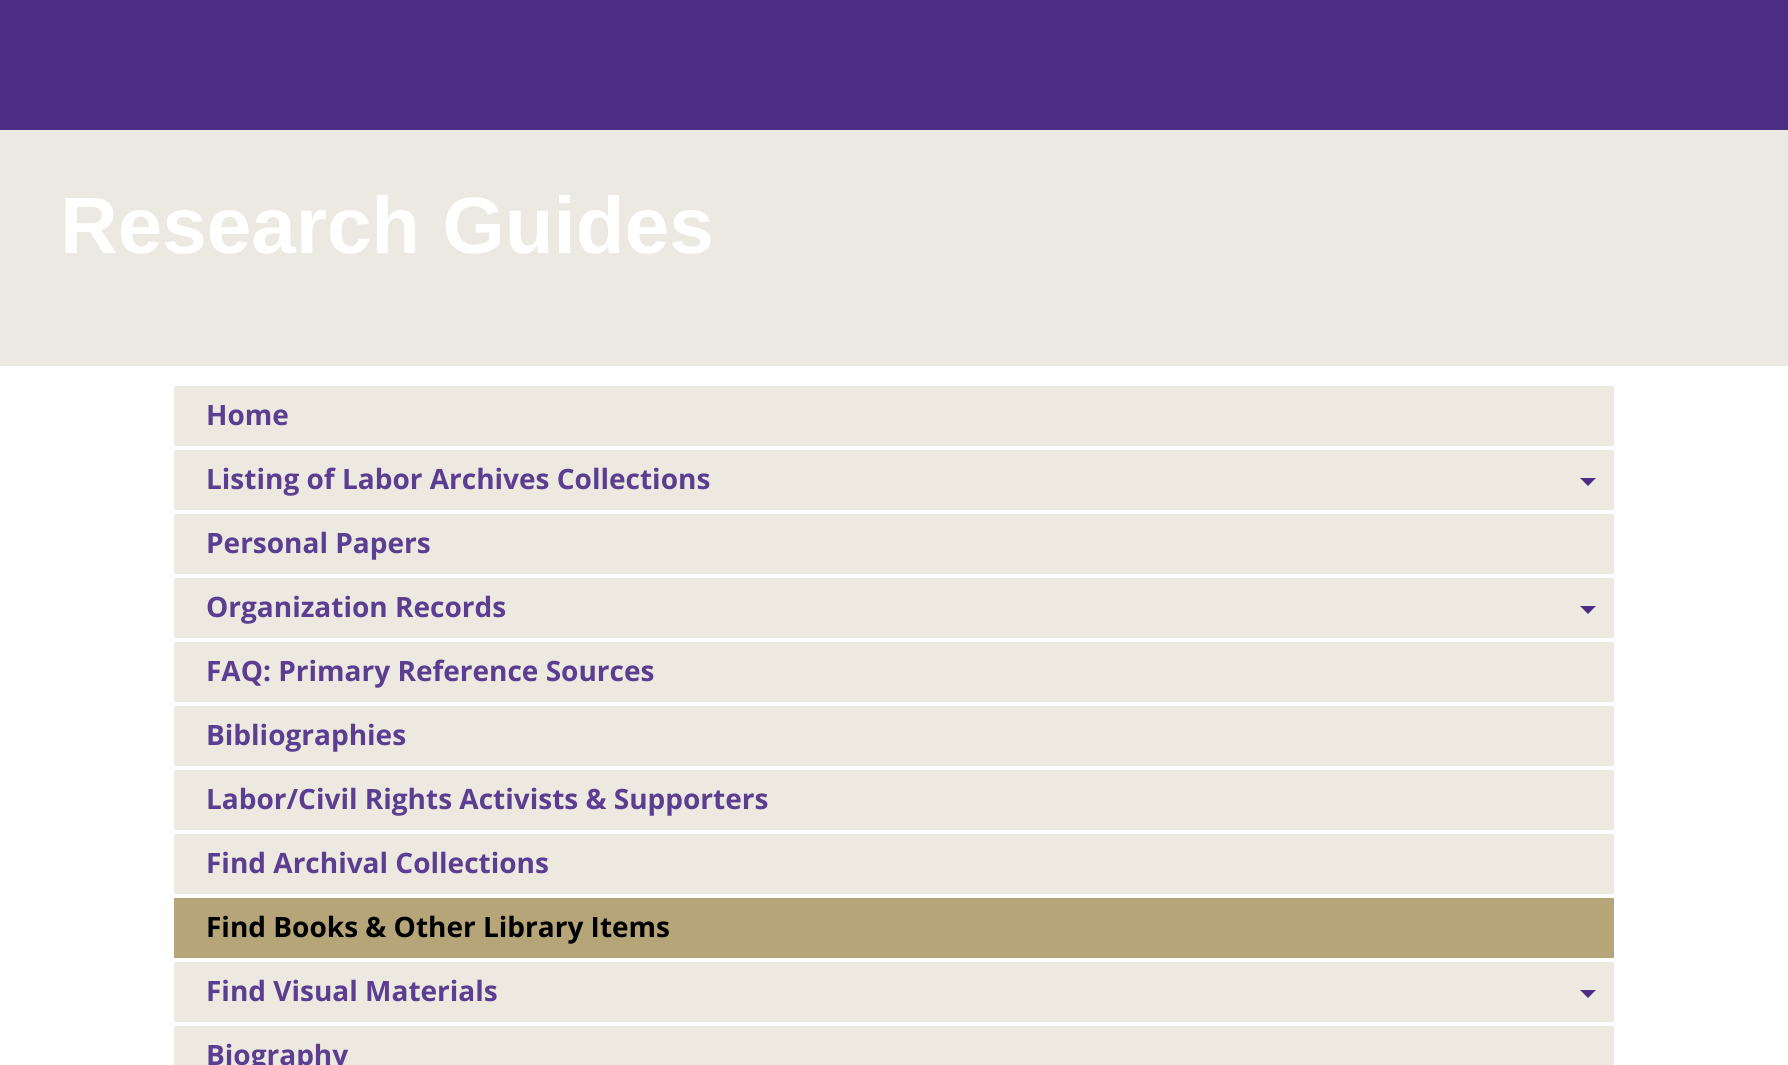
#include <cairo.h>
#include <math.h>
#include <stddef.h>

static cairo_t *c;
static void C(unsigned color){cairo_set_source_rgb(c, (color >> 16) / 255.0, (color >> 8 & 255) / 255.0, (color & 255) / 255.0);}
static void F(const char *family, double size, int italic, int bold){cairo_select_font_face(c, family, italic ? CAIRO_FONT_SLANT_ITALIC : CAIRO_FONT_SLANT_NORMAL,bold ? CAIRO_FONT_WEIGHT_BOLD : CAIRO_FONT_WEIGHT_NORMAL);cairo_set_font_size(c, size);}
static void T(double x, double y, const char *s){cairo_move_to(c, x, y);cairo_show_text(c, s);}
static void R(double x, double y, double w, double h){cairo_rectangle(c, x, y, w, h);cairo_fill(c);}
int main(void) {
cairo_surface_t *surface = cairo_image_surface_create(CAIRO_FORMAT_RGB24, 1788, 1065);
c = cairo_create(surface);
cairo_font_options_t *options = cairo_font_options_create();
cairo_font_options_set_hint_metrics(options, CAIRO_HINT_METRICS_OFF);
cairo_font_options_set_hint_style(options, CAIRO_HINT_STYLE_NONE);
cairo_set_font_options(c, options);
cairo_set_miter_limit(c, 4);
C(0xffffff);
cairo_paint(c);
C(0x4b2e83);
R(0,0,1788,130);
C(0xece9e2);
R(0,130,1788,236);
F("Liberation Sans",80,0,1);
C(0xffffff);
T(60,253,"Research Guides");
C(0xede9e0);
R(174,386,1440,60);
F("Open Sans",28,0,1);
C(0x5b3e91);
T(206,425,"Home");
C(0xede9e0);
R(174,450,1440,60);
C(0x5b3e91);
T(206,489,"Listing of Labor Archives Collections");
C(0x4b2e83);
cairo_new_path(c);
cairo_move_to(c,1580,478);
cairo_line_to(c,1596,478);
cairo_line_to(c,1588,486);
cairo_close_path(c);
cairo_fill(c);
C(0xede9e0);
R(174,514,1440,60);
C(0x5b3e91);
T(206,553,"Personal Papers");
C(0xede9e0);
R(174,578,1440,60);
C(0x5b3e91);
T(206,617,"Organization Records");
C(0x4b2e83);
cairo_new_path(c);
cairo_move_to(c,1580,606);
cairo_line_to(c,1596,606);
cairo_line_to(c,1588,614);
cairo_close_path(c);
cairo_fill(c);
C(0xede9e0);
R(174,642,1440,60);
C(0x5b3e91);
T(206,681,"FAQ: Primary Reference Sources");
C(0xede9e0);
R(174,706,1440,60);
C(0x5b3e91);
T(206,745,"Bibliographies");
C(0xede9e0);
R(174,770,1440,60);
C(0x5b3e91);
T(206,809,"Labor/Civil Rights Activists & Supporters");
C(0xede9e0);
R(174,834,1440,60);
C(0x5b3e91);
T(206,873,"Find Archival Collections");
C(0xb7a57a);
R(174,898,1440,60);
C(0x000000);
T(206,937,"Find Books & Other Library Items");
C(0xede9e0);
R(174,962,1440,60);
C(0x5b3e91);
T(206,1001,"Find Visual Materials");
C(0x4b2e83);
cairo_new_path(c);
cairo_move_to(c,1580,990);
cairo_line_to(c,1596,990);
cairo_line_to(c,1588,998);
cairo_close_path(c);
cairo_fill(c);
C(0xede9e0);
R(174,1026,1440,39);
C(0x5b3e91);
T(206,1065,"Biography");
cairo_surface_write_to_png(surface, "o.png");
cairo_font_options_destroy(options);
cairo_destroy(c);
cairo_surface_destroy(surface);
return 0;
}
